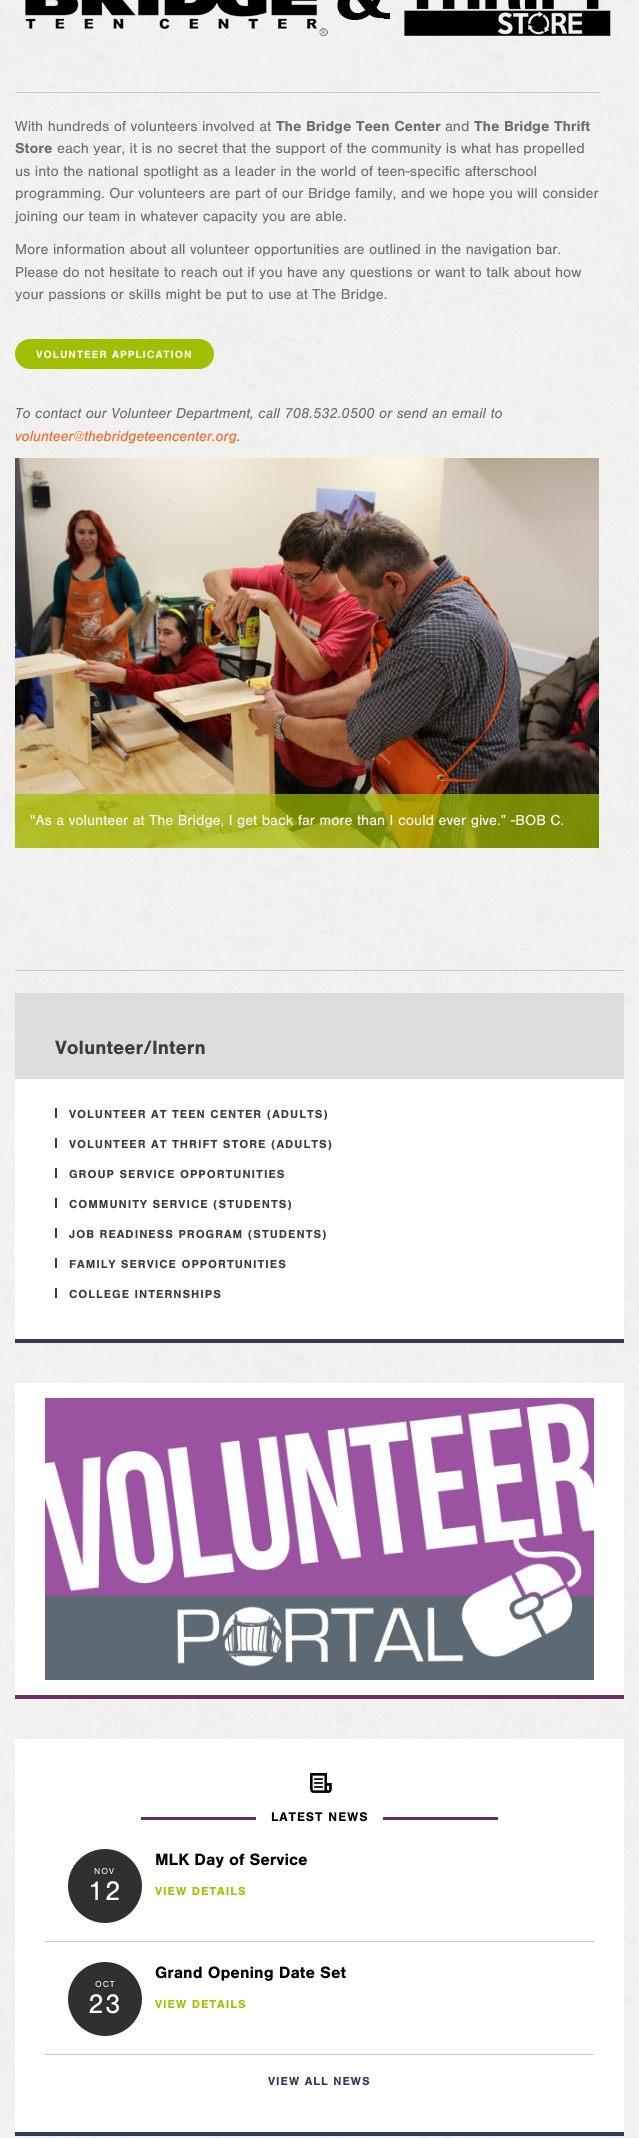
#include <cairo.h>
#include <math.h>
#include <stddef.h>

static cairo_t *c;
static void C(unsigned color){cairo_set_source_rgb(c, (color >> 16) / 255.0, (color >> 8 & 255) / 255.0, (color & 255) / 255.0);}
static void F(const char *family, double size, int italic, int bold){cairo_select_font_face(c, family, italic ? CAIRO_FONT_SLANT_ITALIC : CAIRO_FONT_SLANT_NORMAL,bold ? CAIRO_FONT_WEIGHT_BOLD : CAIRO_FONT_WEIGHT_NORMAL);cairo_set_font_size(c, size);}
static void T(double x, double y, const char *s){cairo_move_to(c, x, y);cairo_show_text(c, s);}
static void L(double x, double y, const char *s, double letter, double word){cairo_move_to(c, x, y);while (*s) {char ch[5] = {0};int n = 0;do ch[n++] = *s++; while ((*s & 0xC0) == 0x80);cairo_show_text(c, ch);cairo_rel_move_to(c, letter + word * (*ch == ' '), 0);}}
static void R(double x, double y, double w, double h){cairo_rectangle(c, x, y, w, h);cairo_fill(c);}
static void Q(double x, double y, double w, double h, double r){cairo_new_sub_path(c);cairo_arc(c, x + w - r, y + h - r, r, 0, M_PI / 2);cairo_arc(c, x + r, y + h - r, r, M_PI / 2, M_PI);cairo_arc(c, x + r, y + r, r, M_PI, 1.5 * M_PI);cairo_arc(c, x + w - r, y + r, r, 1.5 * M_PI, 2 * M_PI);cairo_close_path(c);}
static void I(const char *path, double x, double y, double w, double h){cairo_surface_t *image = cairo_image_surface_create_from_png(path);cairo_save(c);cairo_set_source_surface(c, image, x, y);cairo_rectangle(c, x, y, w, h);cairo_fill(c);cairo_restore(c);cairo_surface_destroy(image);}
int main(void) {
cairo_surface_t *surface = cairo_image_surface_create(CAIRO_FORMAT_RGB24, 639, 2138);
c = cairo_create(surface);
cairo_font_options_t *options = cairo_font_options_create();
cairo_font_options_set_hint_metrics(options, CAIRO_HINT_METRICS_OFF);
cairo_font_options_set_hint_style(options, CAIRO_HINT_STYLE_NONE);
cairo_set_font_options(c, options);
cairo_set_miter_limit(c, 4);
C(0xffffff);
cairo_paint(c);
I("1.png",0,0,639,2138);
I("2.png",25,0,586,36);
C(0xc9c8c8);
R(15,92,584,1);
F("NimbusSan",15,0,0);
C(0x6e6e6e);
T(15,131,"With hundreds of volunteers involved at");
F("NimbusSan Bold",15,0,1);
T(276,131,"The Bridge Teen Center");
F("NimbusSan",15,0,0);
T(445,131,"and");
F("NimbusSan Bold",15,0,1);
T(474,131,"The Bridge Thrift");
T(15,153,"Store");
F("NimbusSan",15,0,0);
T(57,153,"each year, it is no secret that the support of the community is what has propelled");
T(15,176,"us into the national spotlight as a leader in the world of teen-specific afterschool");
T(15,198,"programming. Our volunteers are part of our Bridge family, and we hope you will consider");
T(15,221,"joining our team in whatever capacity you are able.");
T(15,254,"More information about all volunteer opportunities are outlined in the navigation bar.");
T(15,277,"Please do not hesitate to reach out if you have any questions or want to talk about how");
T(15,299,"your passions or skills might be put to use at The Bridge.");
C(0xa1be01);
Q(15.5,339.5,198,29,14.5);
cairo_fill_preserve(c);
cairo_set_line_width(c,1);
cairo_stroke(c);
F("NimbusSan Bold",11,0,1);
C(0xffffff);
L(36,358,"VOLUNTEER APPLICATION",1,0);
F("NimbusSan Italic",15,1,0);
C(0x6e6e6e);
T(15,418,"To contact our Volunteer Department, call 708.532.0500 or send an email to");
C(0xf36822);
T(15,441,"volunteer@thebridgeteencenter.org");
C(0x6e6e6e);
T(237,441,".");
I("3.png",15,458,584,390);
cairo_set_source_rgba(c,0.631,0.745,0.004,0.7);
R(15,794,584,54);
F("NimbusSan",15,0,0);
C(0xffffff);
T(30,825,"\"As a volunteer at The Bridge, I get back far more than I could ever give.” -BOB C.");
C(0xc9c8c8);
R(15,970,609,1);
C(0xffffff);
R(15,1079,609,260);
C(0x313a53);
R(15,1339,609,4);
C(0xdfdddb);
R(15,993,609,86);
F("NimbusSan Bold",20,0,1);
C(0x3c3c3c);
T(55,1054,"Volunteer/Intern");
R(55,1108,2,10);
F("NimbusSan Bold",12,0,1);
L(69,1118,"VOLUNTEER AT TEEN CENTER (ADULTS)",1,0);
R(55,1138,2,10);
L(69,1148,"VOLUNTEER AT THRIFT STORE (ADULTS)",1,0);
R(55,1168,2,10);
L(69,1178,"GROUP SERVICE OPPORTUNITIES",1,0);
R(55,1198,2,10);
L(69,1208,"COMMUNITY SERVICE (STUDENTS)",1,0);
R(55,1228,2,10);
L(69,1238,"JOB READINESS PROGRAM (STUDENTS)",1,0);
R(55,1258,2,10);
L(69,1268,"FAMILY SERVICE OPPORTUNITIES",1,0);
R(55,1288,2,10);
L(69,1298,"COLLEGE INTERNSHIPS",1,0);
C(0xffffff);
R(15,1383,609,312);
C(0x683064);
R(15,1695,609,4);
I("4.png",45,1398,549,282);
C(0xffffff);
R(15,1739,609,393);
C(0x2d3b55);
R(15,2132,609,4);
I("5.png",310,1773,22,20);
C(0x683064);
R(141,1817,115,3);
F("NimbusSan Bold",13,0,1);
C(0x000000);
L(271,1821,"LATEST NEWS",1,0);
C(0x683064);
R(383,1817,115,3);
C(0x303030);
cairo_new_path(c);
cairo_arc(c,105,1886,38.5,0,2 * M_PI);
cairo_fill_preserve(c);
C(0xffffff);
cairo_set_line_width(c,3);
cairo_stroke(c);
F("NimbusSan",9,0,0);
L(94,1874,"NOV",1,0);
F("NimbusSan",28,0,0);
L(88,1900,"12",1,0);
F("NimbusSan Bold",17,0,1);
C(0x000000);
T(155,1865,"MLK Day of Service");
F("NimbusSan Bold",12,0,1);
C(0xa1be01);
L(155,1895,"VIEW DETAILS",1,0);
C(0xc9c8c8);
R(45,1941,549,1);
C(0x303030);
cairo_new_path(c);
cairo_arc(c,105,1999,38.5,0,2 * M_PI);
cairo_fill_preserve(c);
C(0xffffff);
cairo_stroke(c);
F("NimbusSan",9,0,0);
L(95,1987,"OCT",1,0);
F("NimbusSan",28,0,0);
L(88,2013,"23",1,0);
F("NimbusSan Bold",17,0,1);
C(0x000000);
T(155,1978,"Grand Opening Date Set");
F("NimbusSan Bold",12,0,1);
C(0xa1be01);
L(155,2008,"VIEW DETAILS",1,0);
C(0xc9c8c8);
R(45,2054,549,1);
C(0x2d3b55);
L(268,2085,"VIEW ALL NEWS",1,0);
cairo_surface_write_to_png(surface, "o.png");
cairo_font_options_destroy(options);
cairo_destroy(c);
cairo_surface_destroy(surface);
return 0;
}
